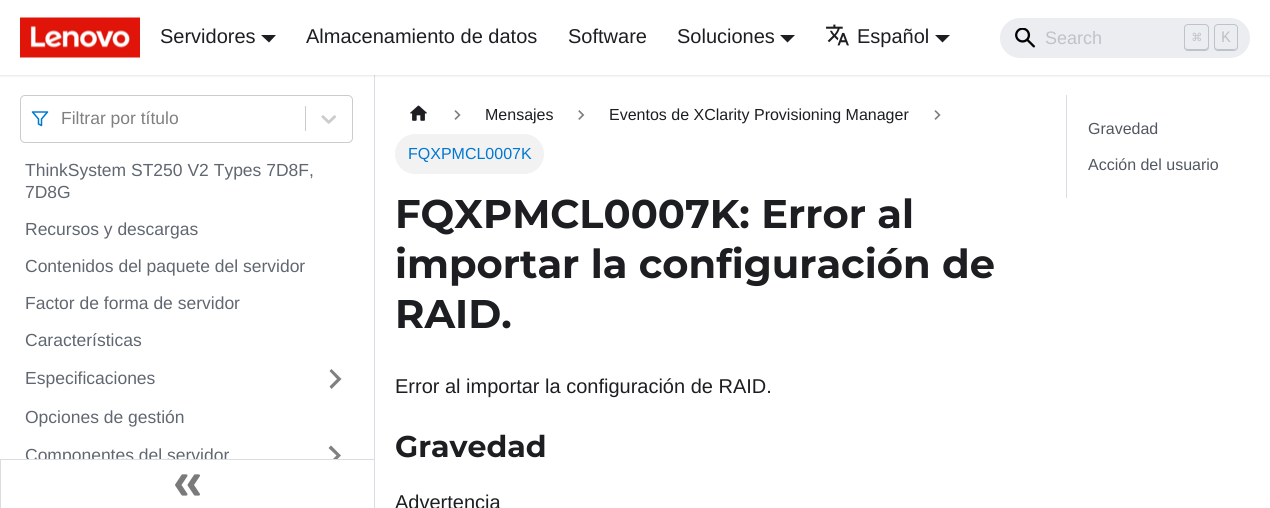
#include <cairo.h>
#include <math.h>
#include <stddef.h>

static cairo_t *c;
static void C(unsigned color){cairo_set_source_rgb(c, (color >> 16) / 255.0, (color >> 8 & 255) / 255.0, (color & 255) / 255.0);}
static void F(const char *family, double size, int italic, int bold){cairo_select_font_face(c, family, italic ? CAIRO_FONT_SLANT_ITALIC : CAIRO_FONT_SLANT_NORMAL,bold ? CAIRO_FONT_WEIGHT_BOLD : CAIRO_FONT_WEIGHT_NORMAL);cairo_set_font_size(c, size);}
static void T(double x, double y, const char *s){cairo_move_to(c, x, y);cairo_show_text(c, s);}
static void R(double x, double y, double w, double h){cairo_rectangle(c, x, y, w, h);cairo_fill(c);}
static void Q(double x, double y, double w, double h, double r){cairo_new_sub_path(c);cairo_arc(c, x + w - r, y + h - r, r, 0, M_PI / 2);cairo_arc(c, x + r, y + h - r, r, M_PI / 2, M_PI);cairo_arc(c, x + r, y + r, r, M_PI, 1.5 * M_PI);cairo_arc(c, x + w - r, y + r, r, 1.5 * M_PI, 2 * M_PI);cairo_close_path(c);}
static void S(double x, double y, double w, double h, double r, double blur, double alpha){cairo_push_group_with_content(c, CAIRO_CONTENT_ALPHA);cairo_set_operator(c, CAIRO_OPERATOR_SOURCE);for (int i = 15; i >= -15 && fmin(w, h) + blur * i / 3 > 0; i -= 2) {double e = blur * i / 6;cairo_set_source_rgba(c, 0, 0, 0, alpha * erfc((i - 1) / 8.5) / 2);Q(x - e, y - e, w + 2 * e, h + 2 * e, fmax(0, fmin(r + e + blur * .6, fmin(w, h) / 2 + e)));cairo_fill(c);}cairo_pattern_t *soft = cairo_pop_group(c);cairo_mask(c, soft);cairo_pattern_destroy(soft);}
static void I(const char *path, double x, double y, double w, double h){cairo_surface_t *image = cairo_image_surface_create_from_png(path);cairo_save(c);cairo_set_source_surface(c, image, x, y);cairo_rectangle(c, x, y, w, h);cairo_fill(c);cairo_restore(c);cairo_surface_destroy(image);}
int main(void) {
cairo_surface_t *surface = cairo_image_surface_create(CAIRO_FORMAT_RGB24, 1270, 508);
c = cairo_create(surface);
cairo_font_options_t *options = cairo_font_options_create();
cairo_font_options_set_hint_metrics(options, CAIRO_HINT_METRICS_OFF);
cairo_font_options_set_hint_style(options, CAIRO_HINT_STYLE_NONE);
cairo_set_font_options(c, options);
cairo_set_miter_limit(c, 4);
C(0xffffff);
cairo_paint(c);
C(0xdadde1);
R(374,75,1,384);
C(0x000000);
S(0,1,1270,75,0,1,.1);
C(0xffffff);
R(0,0,1270,75);
I("1.png",20,17,120,41);
F("Liberation Sans",20,0,0);
C(0x1c1e21);
T(160,43,"Servidores");
cairo_new_path(c);
cairo_move_to(c,261,35);
cairo_line_to(c,276,35);
cairo_line_to(c,269,42.5);
cairo_close_path(c);
cairo_fill(c);
T(306,43,"Almacenamiento de datos");
T(568,43,"Software");
T(677,43,"Soluciones");
cairo_new_path(c);
cairo_move_to(c,780,35);
cairo_line_to(c,795,35);
cairo_line_to(c,787.5,42.5);
cairo_close_path(c);
cairo_fill(c);
I("2.png",826,24,23,22);
T(857,43,"Español");
cairo_new_path(c);
cairo_move_to(c,935,35);
cairo_line_to(c,950,35);
cairo_line_to(c,942.5,42.5);
cairo_close_path(c);
cairo_fill(c);
C(0xebedf0);
Q(1000,18,250,40,20);
cairo_fill(c);
I("3.png",1015,28,20,20);
F("Liberation Sans",18,0,0);
C(0xbec3c9);
T(1045,44,"Search");
cairo_new_path(c);
cairo_move_to(c,1185,46);
cairo_curve_to(c,1185,50.5,1186.5,50,1190.5,50);
cairo_line_to(c,1202.5,50);
cairo_curve_to(c,1206.5,50,1208,50.5,1208,46);
cairo_curve_to(c,1208,48,1206,49,1205,49);
cairo_line_to(c,1188,49);
cairo_curve_to(c,1186,49,1185,48,1185,46);
cairo_close_path(c);
cairo_fill(c);
Q(1184.5,24.5,24,26,3.5);
cairo_set_line_width(c,1);
cairo_stroke(c);
F("DejaVu Sans Mono",16,0,0);
T(1192,43,"⌘");
cairo_new_path(c);
cairo_move_to(c,1215,46);
cairo_curve_to(c,1215,50,1216.5,50,1220,50);
cairo_line_to(c,1231,50);
cairo_curve_to(c,1234.5,50,1236,50,1236,46);
cairo_curve_to(c,1236,48,1235,49,1234,49);
cairo_line_to(c,1218,49);
cairo_curve_to(c,1216,49,1215,48,1215,46);
cairo_close_path(c);
cairo_fill(c);
Q(1214.5,24.5,23,26,3.5);
cairo_stroke(c);
F("Liberation Mono",16,0,0);
T(1221,42,"K");
Q(20.5,95.5,332,47,4.5);
C(0xcccccc);
cairo_stroke(c);
cairo_new_path(c);
cairo_move_to(c,47.5,112);
cairo_line_to(c,32.5,112);
cairo_line_to(c,38.5,119);
cairo_line_to(c,38.5,124);
cairo_line_to(c,41.5,125.5);
cairo_line_to(c,41.5,119);
cairo_close_path(c);
C(0x0078d0);
cairo_set_line_width(c,1.5);
cairo_set_line_cap(c,CAIRO_LINE_CAP_ROUND);
cairo_set_line_join(c,CAIRO_LINE_JOIN_ROUND);
cairo_stroke(c);
F("Liberation Sans",17.5,0,0);
C(0x808080);
T(61,124,"Filtrar por título");
C(0xcccccc);
R(305,106,1,25);
I("4.png",321,115,15,9);
C(0x606770);
T(25,176,"ThinkSystem ST250 V2 Types 7D8F,");
T(25,198,"7D8G");
T(25,235,"Recursos y descargas");
T(25,272,"Contenidos del paquete del servidor");
T(25,309,"Factor de forma de servidor");
T(25,346,"Características");
T(25,384,"Especificaciones");
C(0x808080);
cairo_new_path(c);
cairo_move_to(c,329.5,371);
cairo_line_to(c,337,379);
cairo_line_to(c,329.5,386.5);
cairo_line_to(c,331.5,389);
cairo_line_to(c,341.5,379);
cairo_line_to(c,331.5,369);
cairo_close_path(c);
cairo_fill(c);
C(0x606770);
T(25,423,"Opciones de gestión");
cairo_save(c);
cairo_rectangle(c,0,75,375,384);
cairo_clip(c);
T(25,461,"Componentes del servidor");
C(0x808080);
cairo_new_path(c);
cairo_move_to(c,328.5,448);
cairo_line_to(c,336.5,455.5);
cairo_line_to(c,328.5,463.5);
cairo_line_to(c,331,465.5);
cairo_line_to(c,341,455.5);
cairo_line_to(c,331,445.5);
cairo_close_path(c);
cairo_fill(c);
cairo_restore(c);
cairo_rectangle(c,.5,459.5,374,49);
C(0xdadde1);
cairo_set_line_width(c,1);
cairo_set_line_cap(c,CAIRO_LINE_CAP_BUTT);
cairo_set_line_join(c,CAIRO_LINE_JOIN_MITER);
cairo_stroke(c);
I("5.png",175,474,25,22);
I("6.png",410,105,17,16);
I("7.png",454,110,7,10);
F("Liberation Sans",16,0,0);
C(0x1c1e21);
T(485,120,"Mensajes");
I("8.png",578,110,7,10);
T(609,120,"Eventos de XClarity Provisioning Manager");
I("7.png",934,110,7,10);
C(0xf2f2f2);
Q(395,134,149,40,20);
cairo_fill(c);
C(0x0078d0);
T(408,159,"FQXPMCL0007K");
F("Montserrat",40,0,1);
C(0x1c1e21);
T(395,228,"FQXPMCL0007K: Error al");
T(395,278,"importar la configuración de");
T(395,328,"RAID.");
F("Liberation Sans",20,0,0);
T(395,393,"Error al importar la configuración de RAID.");
F("Montserrat",30,0,1);
T(395,457,"Gravedad");
F("Liberation Sans",20,0,0);
T(395,509,"Advertencia");
C(0xdadde1);
R(1066,95,1,103);
F("Liberation Sans",16,0,0);
C(0x525860);
T(1088,134,"Gravedad");
T(1088,170,"Acción del usuario");
cairo_surface_write_to_png(surface, "o.png");
cairo_font_options_destroy(options);
cairo_destroy(c);
cairo_surface_destroy(surface);
return 0;
}
